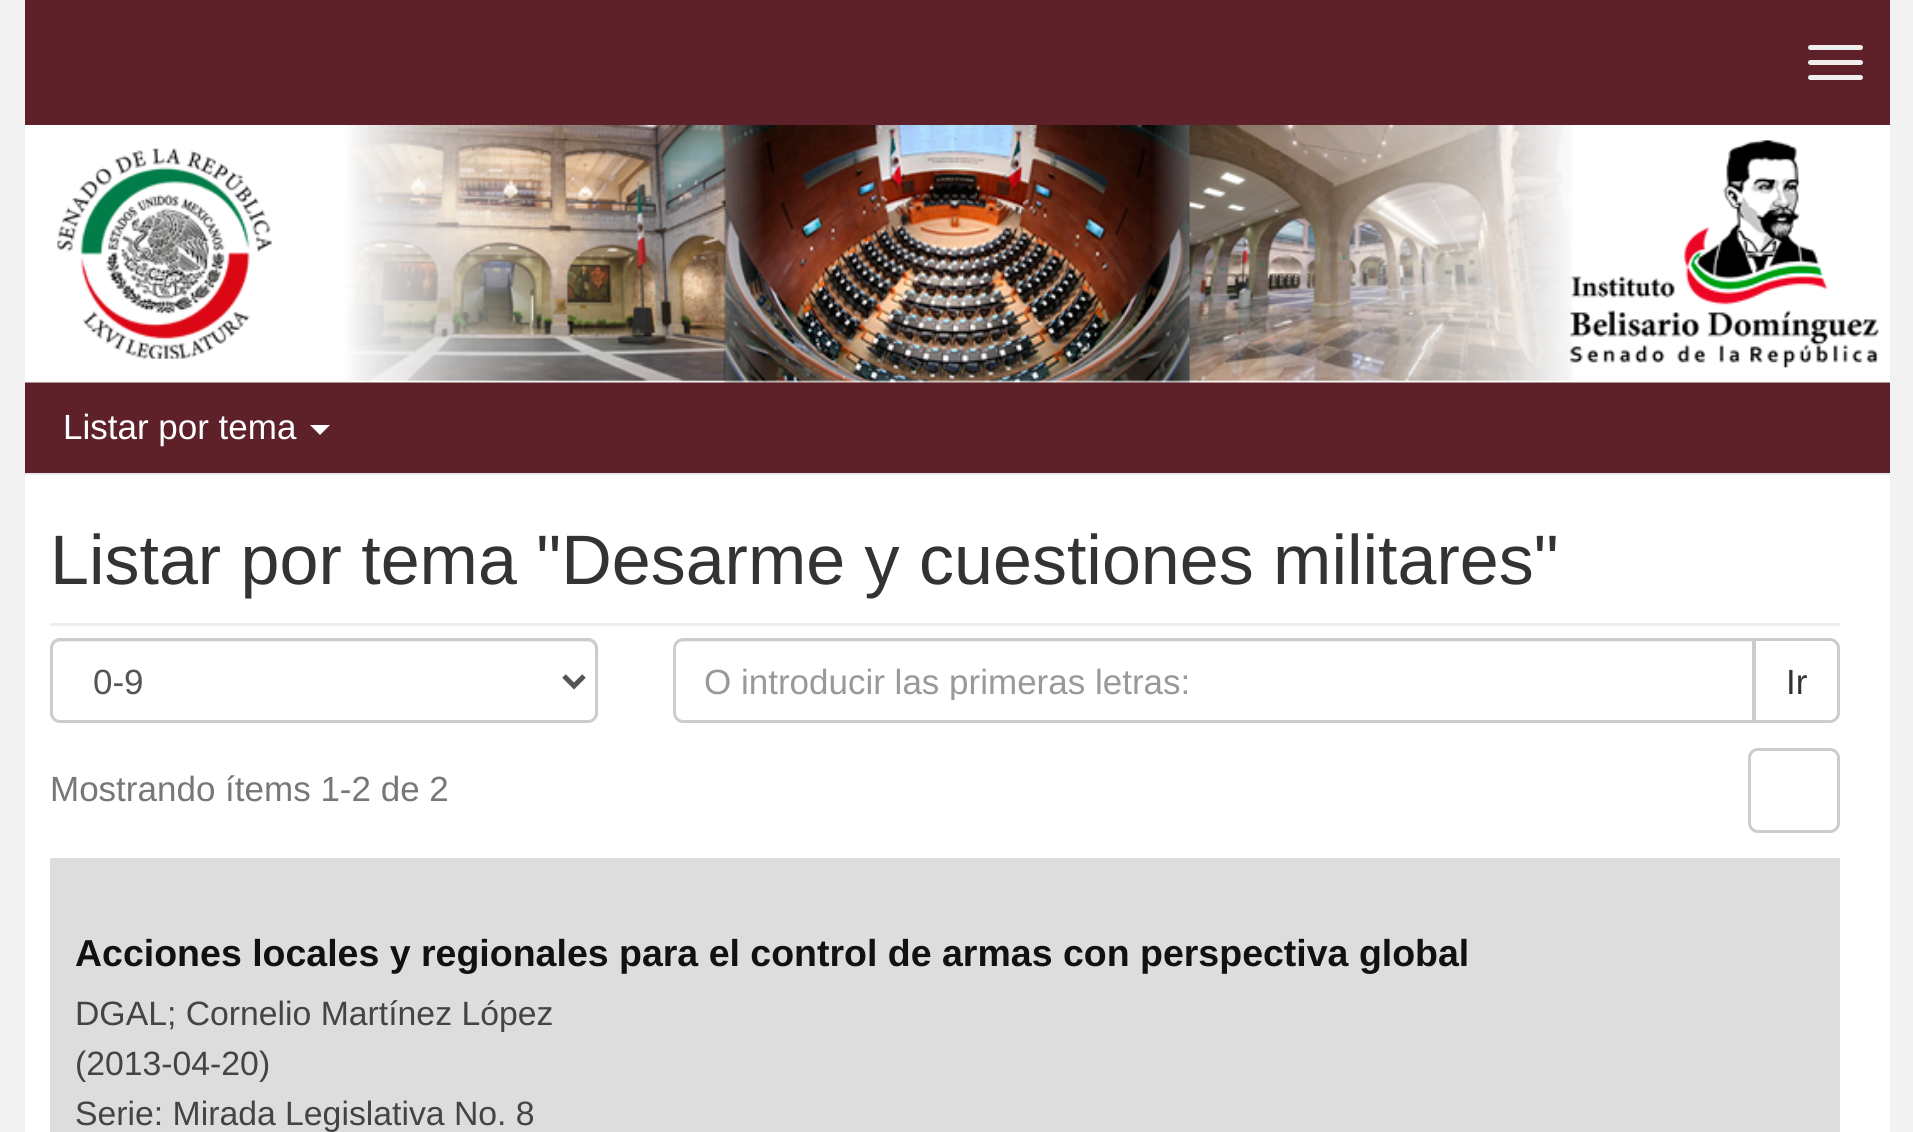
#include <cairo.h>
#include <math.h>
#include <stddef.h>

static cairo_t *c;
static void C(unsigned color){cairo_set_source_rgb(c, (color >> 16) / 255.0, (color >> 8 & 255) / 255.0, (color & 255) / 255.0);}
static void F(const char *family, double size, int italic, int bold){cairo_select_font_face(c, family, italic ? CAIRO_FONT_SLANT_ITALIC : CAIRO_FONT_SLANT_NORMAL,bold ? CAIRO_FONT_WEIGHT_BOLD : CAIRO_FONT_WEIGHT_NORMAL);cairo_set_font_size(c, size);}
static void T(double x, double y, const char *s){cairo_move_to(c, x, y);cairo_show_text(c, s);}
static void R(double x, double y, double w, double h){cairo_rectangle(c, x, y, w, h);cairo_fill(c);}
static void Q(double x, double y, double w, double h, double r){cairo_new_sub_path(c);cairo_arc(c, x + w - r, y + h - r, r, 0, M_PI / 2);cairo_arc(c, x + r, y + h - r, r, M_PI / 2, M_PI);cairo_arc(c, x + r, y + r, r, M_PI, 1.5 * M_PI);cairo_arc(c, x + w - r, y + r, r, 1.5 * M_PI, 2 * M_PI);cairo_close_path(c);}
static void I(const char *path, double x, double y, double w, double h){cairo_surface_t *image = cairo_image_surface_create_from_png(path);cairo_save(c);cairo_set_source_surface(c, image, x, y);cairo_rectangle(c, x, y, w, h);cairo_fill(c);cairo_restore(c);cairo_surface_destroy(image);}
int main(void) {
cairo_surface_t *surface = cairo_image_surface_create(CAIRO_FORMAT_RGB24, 1913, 1132);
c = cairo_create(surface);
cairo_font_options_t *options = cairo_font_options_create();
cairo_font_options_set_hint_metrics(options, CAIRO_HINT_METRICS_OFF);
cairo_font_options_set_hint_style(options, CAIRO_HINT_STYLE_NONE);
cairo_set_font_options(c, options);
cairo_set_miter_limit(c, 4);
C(0xf2f2f2);
cairo_paint(c);
C(0x5e2129);
R(25,0,1865,125);
C(0xeeeeee);
Q(1808,45,55,5,2.5);
cairo_fill(c);
Q(1808,60,55,5,2.5);
cairo_fill(c);
Q(1808,75,55,5,2.5);
cairo_fill(c);
C(0x5e2129);
R(25,382,1865,91);
I("1.png",25,125,1865,258);
C(0xeaeaea);
R(25,473,1865,2);
F("Liberation Sans",35,0,0);
C(0xffffff);
T(63,439,"Listar por tema");
cairo_new_path(c);
cairo_move_to(c,310,425);
cairo_line_to(c,330,425);
cairo_line_to(c,320,435);
cairo_close_path(c);
cairo_fill(c);
R(25,475,1865,657);
C(0xeeeeee);
R(50,623,1790,3);
F("Liberation Sans",70,0,0);
C(0x333333);
T(50,584,"Listar por tema \"Desarme y cuestiones militares\"");
C(0xececec);
cairo_new_path(c);
cairo_move_to(c,60,642);
cairo_line_to(c,588,642);
cairo_curve_to(c,592,642,595,646,595,650);
cairo_line_to(c,595,648);
cairo_curve_to(c,595,644,591,640,587,640);
cairo_line_to(c,61,640);
cairo_curve_to(c,57,640,54,643,53,646);
cairo_curve_to(c,55,644,57,642,60,642);
cairo_close_path(c);
cairo_fill(c);
Q(51.5,639.5,545,82,8.5);
C(0xcccccc);
cairo_set_line_width(c,3);
cairo_stroke(c);
cairo_new_path(c);
cairo_move_to(c,564,676);
cairo_line_to(c,574,686);
cairo_line_to(c,584,676);
C(0x555555);
cairo_set_line_width(c,5);
cairo_stroke(c);
F("Liberation Sans",35,0,0);
T(93,694,"0-9");
cairo_new_path(c);
cairo_move_to(c,1754.5,639.5);
cairo_line_to(c,1830,639.5);
cairo_curve_to(c,1834.5,639.5,1838.5,643.5,1838.5,648);
cairo_line_to(c,1838.5,713);
cairo_curve_to(c,1838.5,717.5,1834.5,721.5,1830,721.5);
cairo_line_to(c,1754.5,721.5);
cairo_close_path(c);
C(0xcccccc);
cairo_set_line_width(c,3);
cairo_stroke(c);
C(0xffffff);
cairo_new_path(c);
cairo_move_to(c,683,638);
cairo_line_to(c,1755,638);
cairo_line_to(c,1755,723);
cairo_line_to(c,683,723);
cairo_curve_to(c,677.5,723,673,718.5,673,713);
cairo_line_to(c,673,648);
cairo_curve_to(c,673,642.5,677.5,638,683,638);
cairo_close_path(c);
cairo_fill(c);
C(0xececec);
cairo_new_path(c);
cairo_move_to(c,682,642);
cairo_line_to(c,1752,642);
cairo_line_to(c,1752,720);
cairo_line_to(c,1753,720);
cairo_line_to(c,1753,640);
cairo_line_to(c,683,640);
cairo_curve_to(c,677,640,675,645,675,650);
cairo_curve_to(c,675,646,678,642,682,642);
cairo_close_path(c);
cairo_fill(c);
cairo_new_path(c);
cairo_move_to(c,683,639.5);
cairo_line_to(c,1753.5,639.5);
cairo_line_to(c,1753.5,721.5);
cairo_line_to(c,683,721.5);
cairo_curve_to(c,678.5,721.5,674.5,717.5,674.5,713);
cairo_line_to(c,674.5,648);
cairo_curve_to(c,674.5,643.5,678.5,639.5,683,639.5);
cairo_close_path(c);
C(0xcccccc);
cairo_stroke(c);
cairo_save(c);
cairo_rectangle(c,705,660,1018,40);
cairo_clip(c);
C(0x999999);
T(704,694,"O introducir las primeras letras:");
cairo_restore(c);
C(0x333333);
T(1786,694,"Ir");
C(0x777777);
T(50,801,"Mostrando ítems 1-2 de 2");
Q(1749.5,749.5,89,82,8.5);
C(0xcccccc);
cairo_stroke(c);
C(0xdddddd);
R(50,858,1790,274);
F("Liberation Sans",37.5,0,1);
C(0x111111);
T(75,966,"Acciones locales y regionales para el control de armas con perspectiva global");
F("Liberation Sans",33.75,0,0);
C(0x444444);
T(75,1025,"DGAL; Cornelio Martínez López");
T(75,1075,"(2013-04-20)");
T(75,1125,"Serie: Mirada Legislativa No. 8");
cairo_surface_write_to_png(surface, "o.png");
cairo_font_options_destroy(options);
cairo_destroy(c);
cairo_surface_destroy(surface);
return 0;
}
